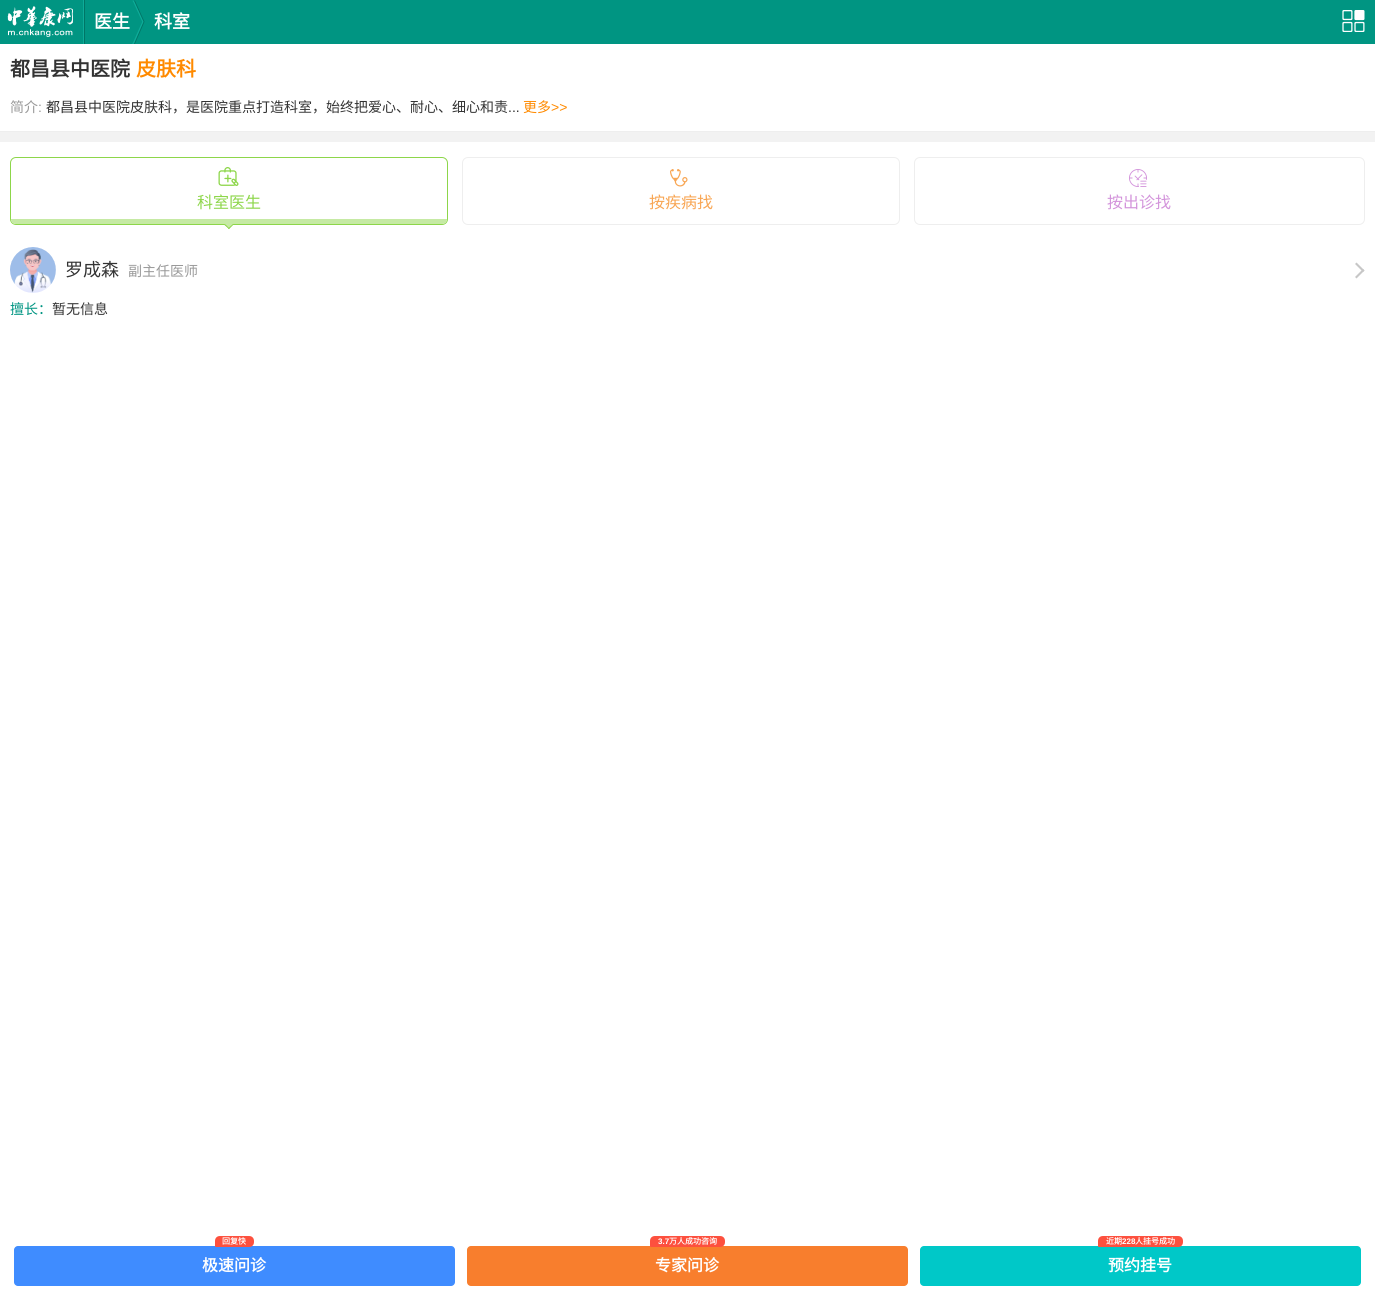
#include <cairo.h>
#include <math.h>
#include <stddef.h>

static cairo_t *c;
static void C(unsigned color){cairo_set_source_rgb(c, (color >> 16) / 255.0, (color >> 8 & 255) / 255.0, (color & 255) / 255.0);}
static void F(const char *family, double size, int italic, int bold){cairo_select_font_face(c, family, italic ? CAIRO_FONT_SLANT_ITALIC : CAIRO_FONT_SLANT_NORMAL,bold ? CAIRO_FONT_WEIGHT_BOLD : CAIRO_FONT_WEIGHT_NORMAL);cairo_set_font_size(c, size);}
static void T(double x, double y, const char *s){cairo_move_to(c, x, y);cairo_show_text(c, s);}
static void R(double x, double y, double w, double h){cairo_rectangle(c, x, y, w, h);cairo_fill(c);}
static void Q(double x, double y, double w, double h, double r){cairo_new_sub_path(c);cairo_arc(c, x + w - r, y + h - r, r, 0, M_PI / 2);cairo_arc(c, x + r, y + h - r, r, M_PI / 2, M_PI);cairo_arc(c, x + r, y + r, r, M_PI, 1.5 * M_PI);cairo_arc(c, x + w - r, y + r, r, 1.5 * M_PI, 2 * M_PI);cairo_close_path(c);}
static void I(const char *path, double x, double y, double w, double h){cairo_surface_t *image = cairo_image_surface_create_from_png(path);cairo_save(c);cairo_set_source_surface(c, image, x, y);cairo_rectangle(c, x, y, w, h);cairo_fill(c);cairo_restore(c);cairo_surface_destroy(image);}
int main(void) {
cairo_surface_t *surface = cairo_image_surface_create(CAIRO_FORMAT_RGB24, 1375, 1299);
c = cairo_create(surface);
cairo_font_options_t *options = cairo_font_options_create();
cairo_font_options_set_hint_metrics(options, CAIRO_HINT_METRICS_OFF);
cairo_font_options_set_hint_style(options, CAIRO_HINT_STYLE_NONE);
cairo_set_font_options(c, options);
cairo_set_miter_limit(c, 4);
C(0xffffff);
cairo_paint(c);
C(0x009582);
R(0,0,1375,44);
I("1.png",7,6,66,31);
C(0x007566);
R(84,0,1,44);
C(0x0eac99);
R(83,0,1,44);
F("Noto Sans CJK SC",18,0,1);
C(0xffffff);
T(94,28,"医生");
I("2.png",132,0,13,44);
T(154,28,"科室");
I("3.png",1342,10,23,22);
C(0xeeeeee);
R(0,131,1375,1);
F("Noto Sans CJK SC",20,0,1);
C(0x333333);
T(10,76,"都昌县中医院");
C(0xff8a00);
T(136,76,"皮肤科");
F("Noto Sans CJK SC",14,0,0);
C(0x999999);
T(10,112,"简介");
F("Liberation Sans",14,0,0);
T(38,112,":");
F("Noto Sans CJK SC",14,0,0);
C(0x333333);
T(46,112,"都昌县中医院皮肤科，是医院重点打造科室，始终把爱心、耐心、细心和责");
F("Liberation Sans",14,0,0);
T(508,112,"...");
F("Noto Sans CJK SC",14,0,0);
C(0xff8a00);
T(523,112,"更多");
F("Liberation Sans",14,0,0);
T(551,112,">>");
C(0xf2f2f2);
R(0,132,1375,10);
Q(10.5,157.5,437,67,5.5);
C(0x8dd64a);
cairo_set_line_width(c,1);
cairo_stroke(c);
I("4.png",218,167,21,19);
F("Noto Sans CJK SC",16,0,0);
T(197,208,"科室医生");
C(0xc6eaa4);
cairo_new_path(c);
cairo_move_to(c,11,219);
cairo_line_to(c,447,219);
cairo_curve_to(c,447,222,445,224,442,224);
cairo_line_to(c,16,224);
cairo_curve_to(c,13,224,11,222,11,219);
cairo_close_path(c);
cairo_fill(c);
cairo_new_path(c);
cairo_move_to(c,229,221);
cairo_line_to(c,233,225);
cairo_line_to(c,229,229);
cairo_line_to(c,224.5,225);
cairo_close_path(c);
cairo_fill(c);
C(0x8dd64a);
cairo_new_path(c);
cairo_move_to(c,232.5,224.5);
cairo_line_to(c,233,225);
cairo_line_to(c,229,229);
cairo_line_to(c,228,228.5);
cairo_close_path(c);
cairo_fill(c);
cairo_new_path(c);
cairo_move_to(c,225.5,224.5);
cairo_line_to(c,229.5,228.5);
cairo_line_to(c,229,229);
cairo_line_to(c,224.5,225);
cairo_close_path(c);
cairo_fill(c);
Q(462.5,157.5,437,67,5.5);
C(0xeeeeee);
cairo_stroke(c);
I("5.png",670,169,18,18);
C(0xf8a654);
T(649,208,"按疾病找");
Q(914.5,157.5,450,67,5.5);
C(0xeeeeee);
cairo_stroke(c);
I("6.png",1129,169,18,18);
C(0xd394db);
T(1107,208,"按出诊找");
I("7.png",10,247,46,46);
F("Noto Sans CJK SC",18,0,0);
C(0x333333);
T(65,276,"罗成森");
F("Noto Sans CJK SC",14,0,0);
C(0x999999);
T(128,276,"副主任医师");
C(0xc7c7c7);
cairo_new_path(c);
cairo_move_to(c,1355,264);
cairo_line_to(c,1356.5,262.5);
cairo_line_to(c,1364.5,270.5);
cairo_line_to(c,1363,272);
cairo_close_path(c);
cairo_fill(c);
cairo_new_path(c);
cairo_move_to(c,1355,277);
cairo_line_to(c,1363,269);
cairo_line_to(c,1364.5,270.5);
cairo_line_to(c,1356.5,278.5);
cairo_close_path(c);
cairo_fill(c);
C(0x009582);
T(10,314,"擅长：");
C(0x333333);
T(52,314,"暂无信息");
C(0x3f8cff);
Q(14,1246,441,40,4);
cairo_fill(c);
C(0xfd503e);
cairo_new_path(c);
cairo_move_to(c,220,1236);
cairo_line_to(c,249,1236);
cairo_curve_to(c,252,1236,254,1238,254,1241);
cairo_line_to(c,254,1242);
cairo_curve_to(c,254,1245,252,1247,249,1247);
cairo_line_to(c,216,1247);
cairo_curve_to(c,215.5,1247,215,1246.5,215,1246);
cairo_line_to(c,215,1241);
cairo_curve_to(c,215,1238,217,1236,220,1236);
cairo_close_path(c);
cairo_fill(c);
F("Noto Sans CJK SC",8,0,1);
C(0xffffff);
T(222,1244,"回复快");
F("Noto Sans CJK SC",16,0,1);
T(202,1271,"极速问诊");
C(0xf87e2d);
Q(467,1246,441,40,4);
cairo_fill(c);
C(0xfd503e);
cairo_new_path(c);
cairo_move_to(c,655,1236);
cairo_line_to(c,720,1236);
cairo_curve_to(c,723,1236,725,1238,725,1241);
cairo_line_to(c,725,1242);
cairo_curve_to(c,725,1245,723,1247,720,1247);
cairo_line_to(c,651,1247);
cairo_curve_to(c,650.5,1247,650,1246.5,650,1246);
cairo_line_to(c,650,1241);
cairo_curve_to(c,650,1238,652,1236,655,1236);
cairo_close_path(c);
cairo_fill(c);
F("Liberation Sans",8,0,1);
C(0xffffff);
T(658,1244,"3.7");
F("Noto Sans CJK SC",8,0,1);
T(669,1244,"万人成功咨询");
F("Noto Sans CJK SC",16,0,1);
T(655,1271,"专家问诊");
C(0x00c8c8);
Q(920,1246,441,40,4);
cairo_fill(c);
C(0xfd503e);
cairo_new_path(c);
cairo_move_to(c,1103,1236);
cairo_line_to(c,1178,1236);
cairo_curve_to(c,1181,1236,1183,1238,1183,1241);
cairo_line_to(c,1183,1242);
cairo_curve_to(c,1183,1245,1181,1247,1178,1247);
cairo_line_to(c,1099,1247);
cairo_curve_to(c,1098.5,1247,1098,1246.5,1098,1246);
cairo_line_to(c,1098,1241);
cairo_curve_to(c,1098,1238,1100,1236,1103,1236);
cairo_close_path(c);
cairo_fill(c);
F("Noto Sans CJK SC",8,0,1);
C(0xffffff);
T(1106,1244,"近期");
F("Liberation Sans",8,0,1);
T(1122,1244,"228");
F("Noto Sans CJK SC",8,0,1);
T(1135,1244,"人挂号成功");
F("Noto Sans CJK SC",16,0,1);
T(1108,1271,"预约挂号");
cairo_surface_write_to_png(surface, "o.png");
cairo_font_options_destroy(options);
cairo_destroy(c);
cairo_surface_destroy(surface);
return 0;
}
